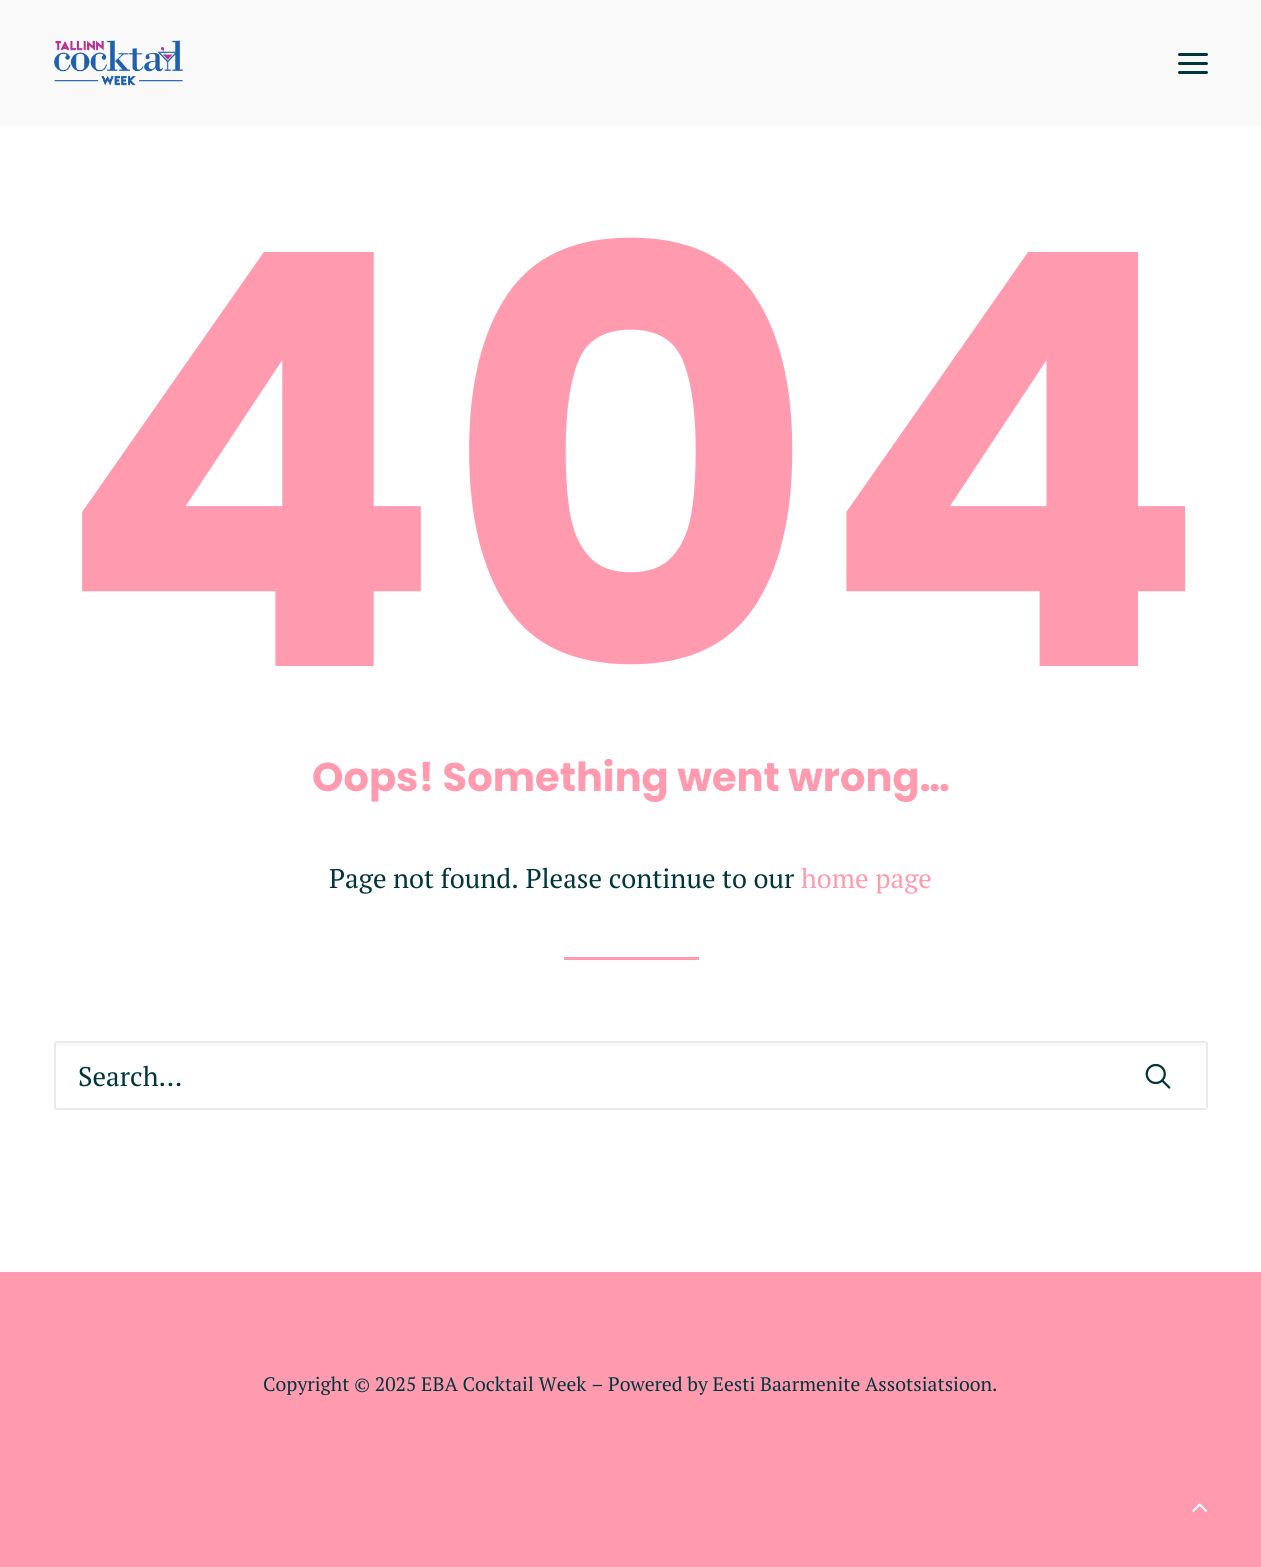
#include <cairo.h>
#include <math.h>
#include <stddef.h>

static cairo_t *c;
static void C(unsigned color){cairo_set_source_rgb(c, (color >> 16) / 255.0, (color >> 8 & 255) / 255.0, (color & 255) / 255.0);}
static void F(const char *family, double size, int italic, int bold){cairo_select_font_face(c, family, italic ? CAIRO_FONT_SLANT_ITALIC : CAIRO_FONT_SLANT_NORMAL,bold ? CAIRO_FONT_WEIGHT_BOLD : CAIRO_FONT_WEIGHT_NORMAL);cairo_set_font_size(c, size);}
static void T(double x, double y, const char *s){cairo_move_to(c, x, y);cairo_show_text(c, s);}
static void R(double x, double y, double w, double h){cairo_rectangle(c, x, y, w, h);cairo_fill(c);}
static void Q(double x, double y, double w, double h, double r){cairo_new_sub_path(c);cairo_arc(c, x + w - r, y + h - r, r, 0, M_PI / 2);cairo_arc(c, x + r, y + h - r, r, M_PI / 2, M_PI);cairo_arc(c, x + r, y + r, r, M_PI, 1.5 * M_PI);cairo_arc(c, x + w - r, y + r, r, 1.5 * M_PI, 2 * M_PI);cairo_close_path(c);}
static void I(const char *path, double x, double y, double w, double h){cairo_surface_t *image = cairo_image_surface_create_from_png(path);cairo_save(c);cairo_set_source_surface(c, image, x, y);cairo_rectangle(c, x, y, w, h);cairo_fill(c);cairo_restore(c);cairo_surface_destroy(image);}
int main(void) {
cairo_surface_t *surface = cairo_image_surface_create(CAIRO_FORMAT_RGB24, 1261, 1567);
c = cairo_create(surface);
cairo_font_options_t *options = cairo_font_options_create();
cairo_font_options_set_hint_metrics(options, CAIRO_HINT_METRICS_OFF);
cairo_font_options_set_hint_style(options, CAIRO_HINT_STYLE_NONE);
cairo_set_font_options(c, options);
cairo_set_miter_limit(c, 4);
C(0xffffff);
cairo_paint(c);
C(0xf9f9f9);
R(0,0,1261,126);
I("1.png",54,40,129,46);
C(0x00363b);
Q(1178,62,30,3,1.5);
cairo_fill(c);
Q(1178,53,30,3,1.5);
cairo_fill(c);
Q(1178,71,30,3,1.5);
cairo_fill(c);
F("Poppins",575,0,1);
C(0xff9aaf);
T(54,666,"404");
F("Poppins",40,0,1);
T(312,791,"Oops! Something went wrong…");
F("PT Serif",27,0,0);
C(0x00363b);
T(329,888,"Page not found. Please continue to our");
C(0xff9aaf);
T(801,888,"home page");
R(564,957,135,3);
C(0xf9f9f9);
cairo_new_path(c);
cairo_move_to(c,57,1046);
cairo_line_to(c,1204,1046);
cairo_curve_to(c,1205,1046,1206,1046,1206,1047);
cairo_line_to(c,1206,1044);
cairo_line_to(c,1204,1043);
cairo_line_to(c,58,1043);
cairo_curve_to(c,55,1043,56,1046,56,1047);
cairo_curve_to(c,56,1046,56,1046,57,1046);
cairo_close_path(c);
cairo_fill(c);
Q(55,1042,1152,67,2);
C(0xeaeaea);
cairo_stroke(c);
C(0x00363b);
T(78,1086,"Search…");
I("2.png",1145,1063,26,26);
C(0xff9aaf);
R(0,1272,1261,295);
F("PT Serif",19.5,0,0);
C(0x00363b);
T(263,1391,"Copyright © 2025 EBA Cocktail Week – Powered by Eesti Baarmenite Assotsiatsioon.");
I("3.png",1192,1503,16,9);
cairo_surface_write_to_png(surface, "o.png");
cairo_font_options_destroy(options);
cairo_destroy(c);
cairo_surface_destroy(surface);
return 0;
}
